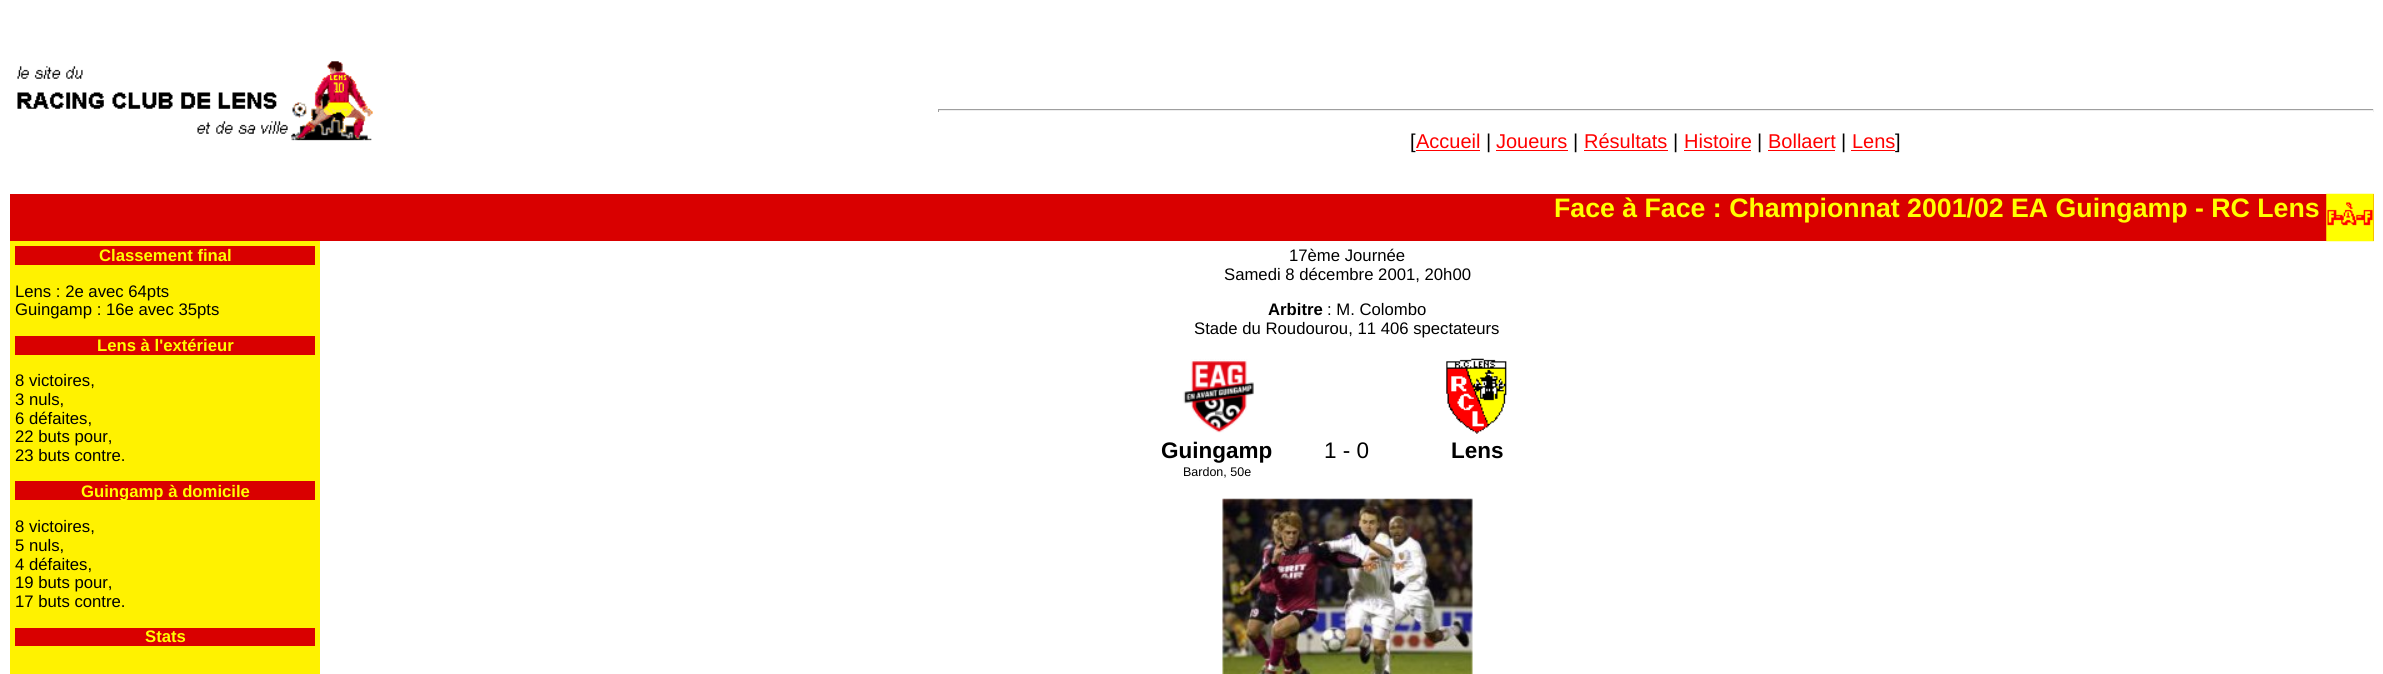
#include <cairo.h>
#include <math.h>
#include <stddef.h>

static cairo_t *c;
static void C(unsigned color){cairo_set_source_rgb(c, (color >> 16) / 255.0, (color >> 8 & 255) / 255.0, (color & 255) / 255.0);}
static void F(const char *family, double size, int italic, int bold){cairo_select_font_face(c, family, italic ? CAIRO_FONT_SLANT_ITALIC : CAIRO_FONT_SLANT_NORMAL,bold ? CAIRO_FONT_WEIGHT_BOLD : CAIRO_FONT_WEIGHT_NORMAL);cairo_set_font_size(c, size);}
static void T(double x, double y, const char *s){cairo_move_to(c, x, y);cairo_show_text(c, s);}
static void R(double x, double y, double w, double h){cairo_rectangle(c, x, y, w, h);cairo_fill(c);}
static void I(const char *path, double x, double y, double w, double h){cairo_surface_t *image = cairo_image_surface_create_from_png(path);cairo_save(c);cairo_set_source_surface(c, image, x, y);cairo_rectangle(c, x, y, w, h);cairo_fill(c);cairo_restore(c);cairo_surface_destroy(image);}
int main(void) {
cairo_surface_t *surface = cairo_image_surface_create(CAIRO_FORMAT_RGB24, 2383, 674);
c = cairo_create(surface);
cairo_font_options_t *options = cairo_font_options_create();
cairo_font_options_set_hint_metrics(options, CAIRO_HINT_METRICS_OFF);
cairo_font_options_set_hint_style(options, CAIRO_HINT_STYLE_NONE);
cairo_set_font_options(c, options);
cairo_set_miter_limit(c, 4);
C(0xffffff);
cairo_paint(c);
I("1.png",17,61,356,80);
C(0x9f9f9f);
R(938,109,1436,1);
C(0xeeeeee);
R(2373,109,1,3);
R(938,110,1436,1);
C(0x9f9f9f);
R(938,109,1,3);
F("Liberation Sans",20,0,0);
C(0x000000);
T(1410,148,"[");
C(0xff0000);
T(1416,148,"Accueil");
R(1416,150,64,1);
C(0x000000);
T(1486,148,"|");
C(0xff0000);
T(1496,148,"Joueurs");
R(1496,150,72,1);
C(0x000000);
T(1573,148,"|");
C(0xff0000);
T(1584,148,"Résultats");
R(1584,150,84,1);
C(0x000000);
T(1673,148,"|");
C(0xff0000);
T(1684,148,"Histoire");
R(1684,150,67,1);
C(0x000000);
T(1757,148,"|");
C(0xff0000);
T(1768,148,"Bollaert");
R(1768,150,67,1);
C(0x000000);
T(1841,148,"|");
C(0xff0000);
T(1852,148,"Lens");
R(1851,150,44,1);
C(0x000000);
T(1895,148,"]");
C(0xd90000);
R(10,194,2364,47);
F("Liberation Sans",26.7,0,1);
C(0xffff00);
T(1554,217,"Face à Face : Championnat 2001/02 EA Guingamp - RC Lens");
I("2.png",2326,193,48,49);
C(0xfff200);
R(10,241,310,433);
C(0xd90000);
R(15,246,300,19);
F("Liberation Sans",16.7,0,1);
C(0xffff00);
T(99,261,"Classement final");
F("Liberation Sans",16.7,0,0);
C(0x000000);
T(15,297,"Lens : 2e avec 64pts");
T(15,315,"Guingamp : 16e avec 35pts");
C(0xd90000);
R(15,336,300,19);
F("Liberation Sans",16.7,0,1);
C(0xffff00);
T(97,351,"Lens à l'extérieur");
F("Liberation Sans",16.7,0,0);
C(0x000000);
T(15,386,"8 victoires,");
T(15,405,"3 nuls,");
T(15,424,"6 défaites,");
T(15,442,"22 buts pour,");
T(15,461,"23 buts contre.");
C(0xd90000);
R(15,481,300,19);
F("Liberation Sans",16.7,0,1);
C(0xffff00);
T(81,497,"Guingamp à domicile");
F("Liberation Sans",16.7,0,0);
C(0x000000);
T(15,532,"8 victoires,");
T(15,551,"5 nuls,");
T(15,570,"4 défaites,");
T(15,588,"19 buts pour,");
T(15,607,"17 buts contre.");
C(0xd90000);
R(15,628,300,18);
F("Liberation Sans",16.7,0,1);
C(0xffff00);
T(145,642,"Stats");
F("Liberation Sans",16.7,0,0);
C(0x000000);
T(1289,261,"17ème Journée");
T(1224,280,"Samedi 8 décembre 2001, 20h00");
F("Liberation Sans",16.7,0,1);
T(1268,315,"Arbitre");
F("Liberation Sans",16.7,0,0);
T(1327,315,": M. Colombo");
T(1194,334,"Stade du Roudourou, 11 406 spectateurs");
I("3.png",1183,359,71,74);
I("4.png",1446,358,61,76);
F("Liberation Sans",22.5,0,1);
T(1161,458,"Guingamp");
F("Liberation Sans",12.5,0,0);
T(1183,476,"Bardon, 50e");
F("Liberation Sans",22.5,0,0);
T(1324,458,"1 - 0");
F("Liberation Sans",22.5,0,1);
T(1451,458,"Lens");
I("5.png",1222,498,251,176);
cairo_surface_write_to_png(surface, "o.png");
cairo_font_options_destroy(options);
cairo_destroy(c);
cairo_surface_destroy(surface);
return 0;
}
